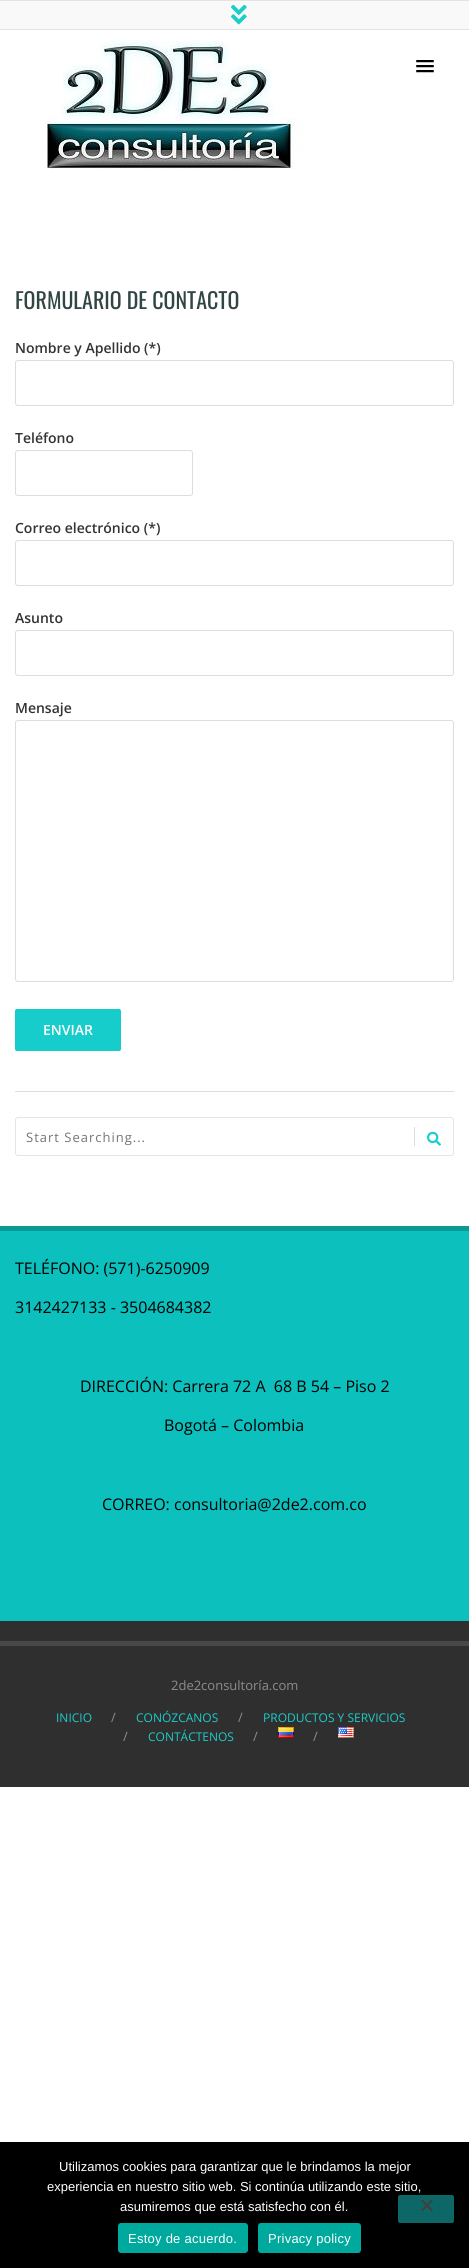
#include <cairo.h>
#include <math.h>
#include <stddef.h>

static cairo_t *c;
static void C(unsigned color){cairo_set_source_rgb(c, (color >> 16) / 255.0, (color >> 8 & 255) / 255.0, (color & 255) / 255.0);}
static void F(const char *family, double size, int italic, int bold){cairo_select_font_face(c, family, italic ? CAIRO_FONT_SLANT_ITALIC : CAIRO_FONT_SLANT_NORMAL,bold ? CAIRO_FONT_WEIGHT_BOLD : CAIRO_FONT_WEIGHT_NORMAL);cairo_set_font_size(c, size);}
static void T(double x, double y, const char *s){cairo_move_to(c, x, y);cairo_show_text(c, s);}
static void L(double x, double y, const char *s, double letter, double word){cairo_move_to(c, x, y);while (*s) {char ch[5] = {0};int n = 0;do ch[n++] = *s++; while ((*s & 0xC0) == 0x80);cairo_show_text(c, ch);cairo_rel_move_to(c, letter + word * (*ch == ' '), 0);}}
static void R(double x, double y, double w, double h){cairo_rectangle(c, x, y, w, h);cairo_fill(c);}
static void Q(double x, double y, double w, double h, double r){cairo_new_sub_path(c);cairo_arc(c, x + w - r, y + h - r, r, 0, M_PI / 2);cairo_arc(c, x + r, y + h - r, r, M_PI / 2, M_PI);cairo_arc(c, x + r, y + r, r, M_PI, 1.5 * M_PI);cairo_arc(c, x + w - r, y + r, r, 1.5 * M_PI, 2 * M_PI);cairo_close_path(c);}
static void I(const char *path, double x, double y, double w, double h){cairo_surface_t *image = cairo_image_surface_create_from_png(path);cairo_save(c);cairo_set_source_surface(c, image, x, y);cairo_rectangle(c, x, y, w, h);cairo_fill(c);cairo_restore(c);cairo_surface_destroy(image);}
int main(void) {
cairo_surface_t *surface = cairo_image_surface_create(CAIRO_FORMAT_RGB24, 469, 2268);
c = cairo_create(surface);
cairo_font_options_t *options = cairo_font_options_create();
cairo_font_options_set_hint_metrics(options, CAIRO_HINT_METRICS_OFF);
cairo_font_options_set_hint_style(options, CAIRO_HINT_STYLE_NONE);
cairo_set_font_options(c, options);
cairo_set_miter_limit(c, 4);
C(0xffffff);
cairo_paint(c);
C(0xe4e4e4);
R(0,29,469,1);
C(0xf9f9f9);
R(0,1,469,28);
C(0xe4e4e4);
R(0,0,469,1);
I("1.png",231,4,16,21);
I("2.png",47,40,256,129);
C(0xbfbfbf);
cairo_new_path(c);
cairo_move_to(c,416,61.5);
cairo_curve_to(c,415,63.5,419.5,63,419.5,63);
cairo_line_to(c,430.5,63);
cairo_curve_to(c,430.5,63,435,63.5,434,61.5);
cairo_curve_to(c,433,62.5,426.5,62,425,62);
cairo_curve_to(c,423.5,62,417,62.5,416,61.5);
cairo_close_path(c);
cairo_fill(c);
C(0x000000);
Q(416,60,18,2,1);
cairo_fill(c);
C(0xbfbfbf);
cairo_new_path(c);
cairo_move_to(c,416,66.5);
cairo_curve_to(c,415,68.5,419.5,68,419.5,68);
cairo_line_to(c,430.5,68);
cairo_curve_to(c,430.5,68,435,68.5,434,66.5);
cairo_curve_to(c,433,67.5,426.5,67,425,67);
cairo_curve_to(c,423.5,67,417,67.5,416,66.5);
cairo_close_path(c);
cairo_fill(c);
C(0x000000);
Q(416,65,18,2,1);
cairo_fill(c);
C(0xbfbfbf);
cairo_new_path(c);
cairo_move_to(c,416,71.5);
cairo_curve_to(c,415,73.5,419.5,73,419.5,73);
cairo_line_to(c,430.5,73);
cairo_curve_to(c,430.5,73,435,73.5,434,71.5);
cairo_curve_to(c,433,72.5,426.5,72,425,72);
cairo_curve_to(c,423.5,72,417,72.5,416,71.5);
cairo_close_path(c);
cairo_fill(c);
C(0x000000);
Q(416,70,18,2,1);
cairo_fill(c);
F("Oswald",22,0,0);
C(0x324545);
T(15,309,"FORMULARIO DE CONTACTO");
F("Open Sans SemiBold",14,0,0);
C(0x333333);
T(15,353,"Nombre y Apellido (*)");
Q(15.5,360.5,438,45,2.5);
C(0xdddddd);
cairo_set_line_width(c,1);
cairo_stroke(c);
C(0x333333);
T(15,443,"Teléfono");
Q(15.5,450.5,177,45,2.5);
C(0xdddddd);
cairo_stroke(c);
C(0x333333);
T(15,533,"Correo electrónico (*)");
Q(15.5,540.5,438,45,2.5);
C(0xdddddd);
cairo_stroke(c);
C(0x333333);
T(15,623,"Asunto");
Q(15.5,630.5,438,45,2.5);
C(0xdddddd);
cairo_stroke(c);
C(0x333333);
T(15,713,"Mensaje");
Q(15.5,720.5,438,261,2.5);
C(0xdddddd);
cairo_stroke(c);
C(0x17cdcb);
Q(15,1009,106,42,2);
cairo_fill(c);
C(0xffffff);
T(43,1035,"ENVIAR");
C(0xdddddd);
R(15,1091,439,1);
Q(15.5,1117.5,438,38,2.5);
C(0xe5e5e5);
cairo_stroke(c);
F("Open Sans",13,0,0);
C(0x757575);
L(26,1142,"Start Searching...",1,0);
C(0xdddddd);
R(414,1127,1,19);
I("3.png",427,1131,14,15);
C(0x0bc0bd);
R(0,1231,469,390);
C(0x099a97);
R(0,1226,469,5);
F("Open Sans",16,0,0);
C(0x000000);
T(15,1274,"TELÉFONO: (571)-6250909");
T(15,1313,"3142427133 - 3504684382");
T(80,1392,"DIRECCIÓN: Carrera 72 A  68 B 54 – Piso 2");
T(164,1431,"Bogotá – Colombia");
T(102,1510,"CORREO: consultoria@2de2.com.co");
C(0x2f2f2f);
R(0,1621,469,166);
C(0x484848);
R(0,1641,469,5);
F("Open Sans",13,0,0);
C(0x8b8c8d);
T(171,1690,"2de2consultoría.com");
F("Open Sans",12,0,0);
C(0x1ccdca);
T(56,1722,"INICIO");
F("Open Sans",13,0,0);
C(0x8b8c8d);
T(111,1722,"/");
F("Open Sans",12,0,0);
C(0x1ccdca);
T(136,1722,"CONÓZCANOS");
F("Open Sans",13,0,0);
C(0x8b8c8d);
T(238,1722,"/");
F("Open Sans",12,0,0);
C(0x1ccdca);
T(263,1722,"PRODUCTOS Y SERVICIOS");
F("Open Sans",13,0,0);
C(0x8b8c8d);
T(123,1741,"/");
F("Open Sans",12,0,0);
C(0x1ccdca);
T(148,1741,"CONTÁCTENOS");
F("Open Sans",13,0,0);
C(0x8b8c8d);
T(253,1741,"/");
I("4.png",278,1727,16,11);
T(313,1741,"/");
I("5.png",338,1727,16,11);
C(0x000000);
R(0,2142,469,126);
F("Liberation Sans",13,0,0);
C(0xffffff);
T(59,2171,"Utilizamos cookies para garantizar que le brindamos la mejor");
T(47,2191,"experiencia en nuestro sitio web. Si continúa utilizando este sitio,");
T(120,2211,"asumiremos que está satisfecho con él.");
C(0x0c6766);
Q(398,2195,56,28,2);
cairo_fill(c);
C(0x404040);
cairo_new_path(c);
cairo_move_to(c,431.5,2199.5);
cairo_line_to(c,433,2201);
cairo_line_to(c,422.5,2211.5);
cairo_line_to(c,421,2210);
cairo_close_path(c);
cairo_fill(c);
cairo_new_path(c);
cairo_move_to(c,421,2201);
cairo_line_to(c,422.5,2199.5);
cairo_line_to(c,433,2210);
cairo_line_to(c,431.5,2211.5);
cairo_close_path(c);
cairo_fill(c);
C(0x00a99d);
Q(118,2223,130,30,3);
cairo_fill(c);
C(0xffffff);
L(128,2243,"Estoy de acuerdo.",.25,0);
C(0x00a99d);
Q(258,2223,103,30,3);
cairo_fill(c);
C(0xffffff);
L(268,2243,"Privacy policy",.25,0);
cairo_surface_write_to_png(surface, "o.png");
cairo_font_options_destroy(options);
cairo_destroy(c);
cairo_surface_destroy(surface);
return 0;
}
